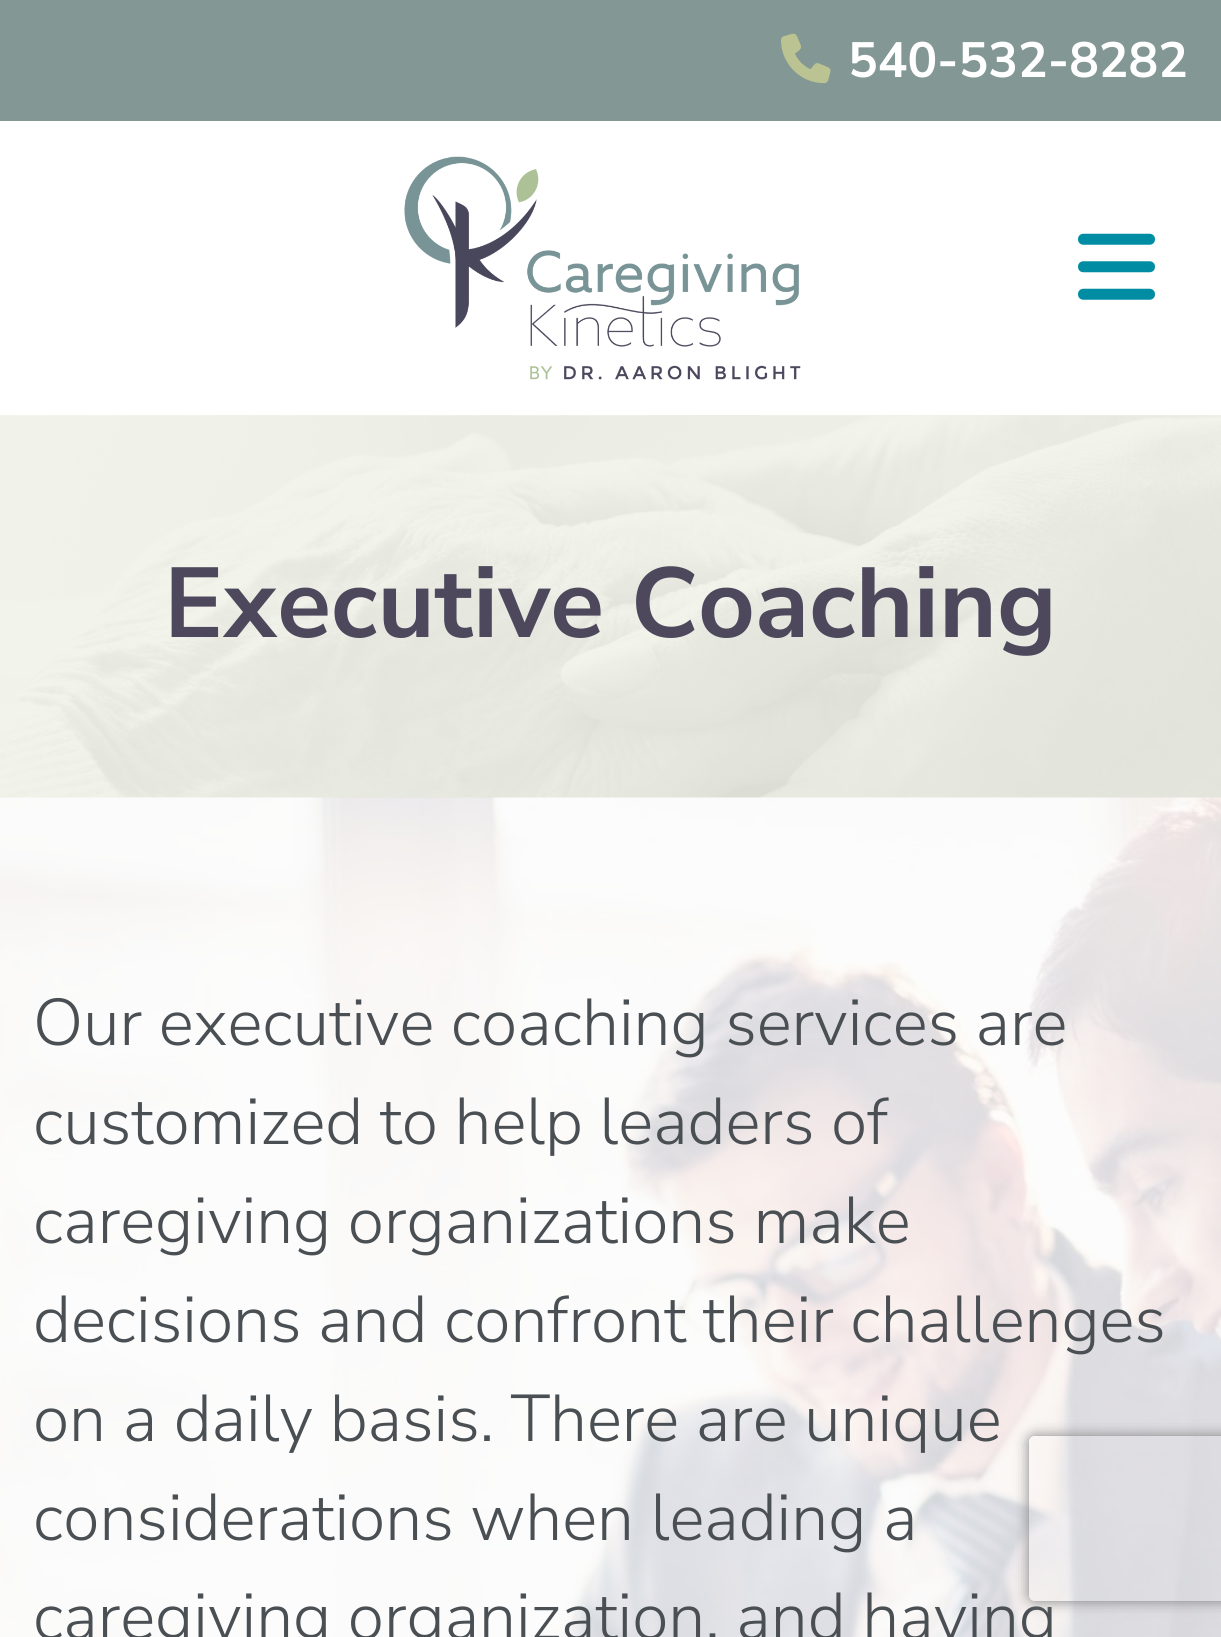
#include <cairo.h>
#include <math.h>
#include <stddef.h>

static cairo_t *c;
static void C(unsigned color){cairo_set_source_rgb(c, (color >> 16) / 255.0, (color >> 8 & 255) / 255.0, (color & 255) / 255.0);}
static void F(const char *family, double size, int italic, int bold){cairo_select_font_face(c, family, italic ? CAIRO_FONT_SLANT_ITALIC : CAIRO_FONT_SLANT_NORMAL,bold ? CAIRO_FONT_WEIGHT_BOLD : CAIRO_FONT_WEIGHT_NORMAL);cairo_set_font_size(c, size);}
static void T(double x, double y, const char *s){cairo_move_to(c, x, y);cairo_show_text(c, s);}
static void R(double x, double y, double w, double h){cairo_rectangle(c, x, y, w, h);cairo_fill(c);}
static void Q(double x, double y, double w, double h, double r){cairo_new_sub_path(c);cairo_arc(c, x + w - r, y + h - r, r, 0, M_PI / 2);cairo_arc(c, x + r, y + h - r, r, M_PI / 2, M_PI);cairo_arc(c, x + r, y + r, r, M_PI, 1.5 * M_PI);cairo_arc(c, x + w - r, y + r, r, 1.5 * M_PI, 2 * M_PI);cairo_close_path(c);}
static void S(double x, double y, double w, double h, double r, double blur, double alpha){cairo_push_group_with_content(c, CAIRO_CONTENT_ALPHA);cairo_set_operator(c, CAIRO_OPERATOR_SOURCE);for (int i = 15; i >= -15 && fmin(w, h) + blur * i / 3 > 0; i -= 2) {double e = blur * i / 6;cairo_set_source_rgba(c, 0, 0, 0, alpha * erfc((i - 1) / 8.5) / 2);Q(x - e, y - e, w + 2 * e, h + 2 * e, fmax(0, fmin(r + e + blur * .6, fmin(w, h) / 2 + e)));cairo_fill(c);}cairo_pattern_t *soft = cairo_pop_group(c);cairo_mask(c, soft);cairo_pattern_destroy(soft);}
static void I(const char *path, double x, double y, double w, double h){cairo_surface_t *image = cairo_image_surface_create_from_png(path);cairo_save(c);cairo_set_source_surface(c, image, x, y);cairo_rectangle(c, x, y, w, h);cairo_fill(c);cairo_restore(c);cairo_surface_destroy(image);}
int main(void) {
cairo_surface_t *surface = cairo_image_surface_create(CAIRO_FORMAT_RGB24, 1221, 1637);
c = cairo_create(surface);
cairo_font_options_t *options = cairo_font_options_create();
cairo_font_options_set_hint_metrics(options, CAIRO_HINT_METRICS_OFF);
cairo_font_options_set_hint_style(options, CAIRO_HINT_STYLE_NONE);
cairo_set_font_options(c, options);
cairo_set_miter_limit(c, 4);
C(0xffffff);
cairo_paint(c);
C(0x839794);
R(0,0,1221,121);
I("1.png",781,33,50,51);
F("Nunito Sans",49.5,0,1);
C(0xffffff);
T(848,77,"540-532-8282");
I("2.png",404,156,397,224);
I("3.png",1078,233,77,67);
I("5.png",0,797,1221,840);
I("4.png",0,415,1221,383);
F("Nunito Sans",99,0,1);
C(0x4d485c);
T(164,637,"Executive Coaching");
F("Nunito Sans Light",66,0,0);
C(0x4a4f54);
T(33,1045,"Our executive coaching services are");
T(33,1144,"customized to help leaders of");
T(33,1243,"caregiving organizations make");
T(33,1342,"decisions and confront their challenges");
T(33,1441,"on a daily basis. There are unique");
T(33,1540,"considerations when leading a");
T(33,1639,"caregiving organization, and having");
cairo_save(c);
cairo_set_fill_rule(c,CAIRO_FILL_RULE_EVEN_ODD);
cairo_new_path(c);
cairo_move_to(c,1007,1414);
cairo_line_to(c,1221,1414);
cairo_line_to(c,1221,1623);
cairo_line_to(c,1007,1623);
cairo_close_path(c);
cairo_move_to(c,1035,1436);
cairo_line_to(c,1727,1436);
cairo_curve_to(c,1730.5,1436,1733,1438.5,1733,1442);
cairo_line_to(c,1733,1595);
cairo_curve_to(c,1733,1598.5,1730.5,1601,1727,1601);
cairo_line_to(c,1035,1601);
cairo_curve_to(c,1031.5,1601,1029,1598.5,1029,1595);
cairo_line_to(c,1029,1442);
cairo_curve_to(c,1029,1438.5,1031.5,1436,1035,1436);
cairo_close_path(c);
cairo_clip(c);
C(0x808080);
S(1029,1436,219,165,6,7,1);
cairo_restore(c);
cairo_surface_write_to_png(surface, "o.png");
cairo_font_options_destroy(options);
cairo_destroy(c);
cairo_surface_destroy(surface);
return 0;
}
